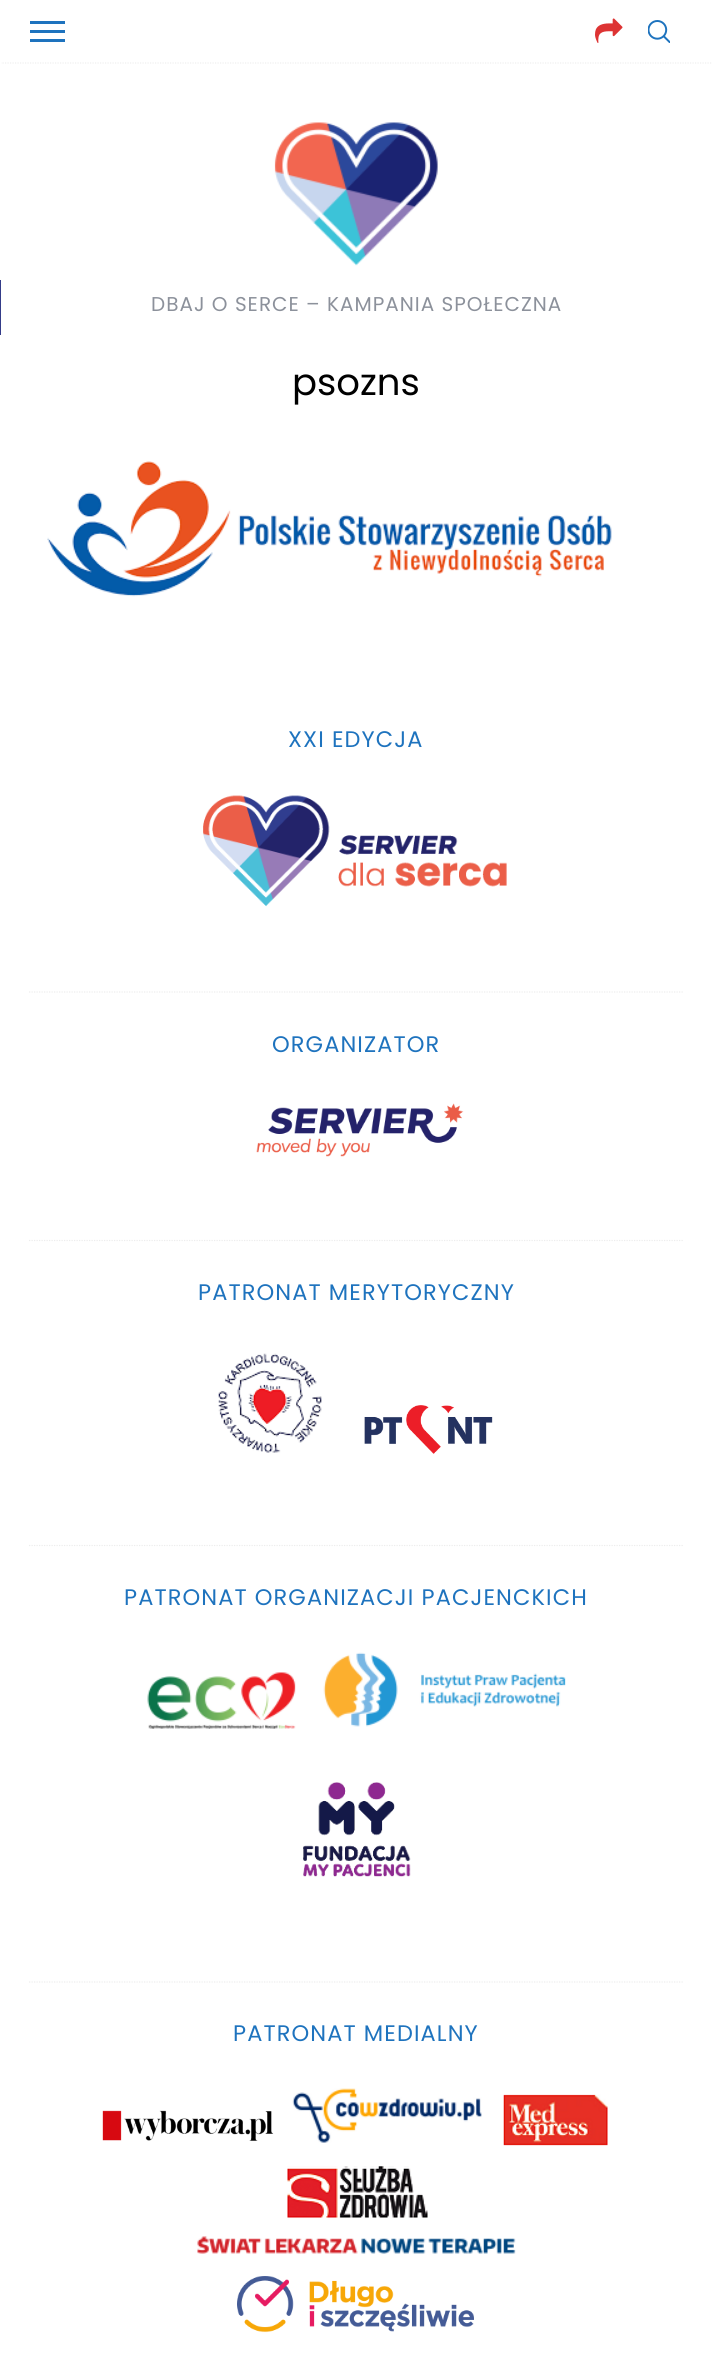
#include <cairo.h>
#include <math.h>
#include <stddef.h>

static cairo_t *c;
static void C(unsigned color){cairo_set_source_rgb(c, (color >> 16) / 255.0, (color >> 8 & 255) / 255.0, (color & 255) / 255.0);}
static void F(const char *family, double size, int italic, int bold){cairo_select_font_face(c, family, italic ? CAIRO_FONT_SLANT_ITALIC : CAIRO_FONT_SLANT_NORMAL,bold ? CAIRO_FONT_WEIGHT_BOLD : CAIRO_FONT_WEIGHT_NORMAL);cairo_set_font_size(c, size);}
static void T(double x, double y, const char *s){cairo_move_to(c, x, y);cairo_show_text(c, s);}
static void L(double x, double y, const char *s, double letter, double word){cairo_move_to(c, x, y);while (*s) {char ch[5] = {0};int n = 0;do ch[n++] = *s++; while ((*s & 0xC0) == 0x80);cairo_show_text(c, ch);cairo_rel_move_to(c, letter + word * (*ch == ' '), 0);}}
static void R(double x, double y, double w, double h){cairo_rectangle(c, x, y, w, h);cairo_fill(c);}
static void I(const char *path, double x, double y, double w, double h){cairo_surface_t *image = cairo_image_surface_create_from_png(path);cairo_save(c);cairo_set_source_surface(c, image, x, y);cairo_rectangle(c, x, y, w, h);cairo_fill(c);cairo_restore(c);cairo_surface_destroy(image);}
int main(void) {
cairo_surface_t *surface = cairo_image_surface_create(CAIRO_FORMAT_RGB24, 712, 2358);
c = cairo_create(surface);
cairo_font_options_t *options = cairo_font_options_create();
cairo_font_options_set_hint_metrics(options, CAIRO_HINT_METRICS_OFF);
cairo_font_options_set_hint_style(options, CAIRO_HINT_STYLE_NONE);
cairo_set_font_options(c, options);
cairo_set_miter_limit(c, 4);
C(0xffffff);
cairo_paint(c);
cairo_new_path(c);
cairo_move_to(c,0,63);
cairo_line_to(c,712.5,63);
C(0xefefef);
cairo_set_line_width(c,1.2);
cairo_set_dash(c,(double[]){1.25,1.25},2,0);
cairo_stroke(c);
C(0x1e73be);
R(30,30,35,3);
R(30,21,35,3);
R(30,39,35,3);
I("1.png",595,18,28,25);
I("2.png",648,20,22,23);
C(0xffffff);
R(0,62,1,2);
C(0x343c89);
R(0,280,1,55);
I("3.png",274,122,164,144);
F("Poppins",20,0,0);
C(0x8c919b);
L(151,311,"DBAJ O SERCE – KAMPANIA SPOŁECZNA",1,0);
F("Poppins",37,0,0);
C(0x000000);
T(292,395,"psozns");
I("4.png",47,461,565,136);
cairo_new_path(c);
cairo_move_to(c,29,992);
cairo_line_to(c,684,992);
C(0xededed);
cairo_stroke(c);
F("Poppins",22.5,0,0);
C(0x1e73be);
L(288,747,"XXI EDYCJA",1.1,0);
I("5.png",203,795,304,112);
cairo_new_path(c);
cairo_move_to(c,29,1240.5);
cairo_line_to(c,684,1240.5);
C(0xededed);
cairo_stroke(c);
C(0x1e73be);
L(272,1052,"ORGANIZATOR",1.1,0);
I("6.png",256,1103,208,54);
cairo_new_path(c);
cairo_move_to(c,29,1545.5);
cairo_line_to(c,684,1545.5);
C(0xededed);
cairo_stroke(c);
C(0x1e73be);
L(198,1300,"PATRONAT MERYTORYCZNY",1.1,0);
I("7.png",218,1353,104,100);
I("8.png",364,1405,129,49);
cairo_new_path(c);
cairo_move_to(c,29,1982);
cairo_line_to(c,684,1982);
C(0xededed);
cairo_stroke(c);
C(0x1e73be);
L(124,1605,"PATRONAT ORGANIZACJI PACJENCKICH",1.1,0);
I("9.png",147,1672,149,57);
I("10.png",323,1652,243,75);
I("11.png",303,1782,108,95);
L(233,2041,"PATRONAT MEDIALNY",1.1,0);
I("12.png",102,2110,172,31);
I("13.png",292,2088,190,55);
I("14.png",503,2094,105,52);
I("15.png",287,2166,141,52);
I("16.png",197,2236,319,18);
I("17.png",237,2276,237,57);
cairo_surface_write_to_png(surface, "o.png");
cairo_font_options_destroy(options);
cairo_destroy(c);
cairo_surface_destroy(surface);
return 0;
}
